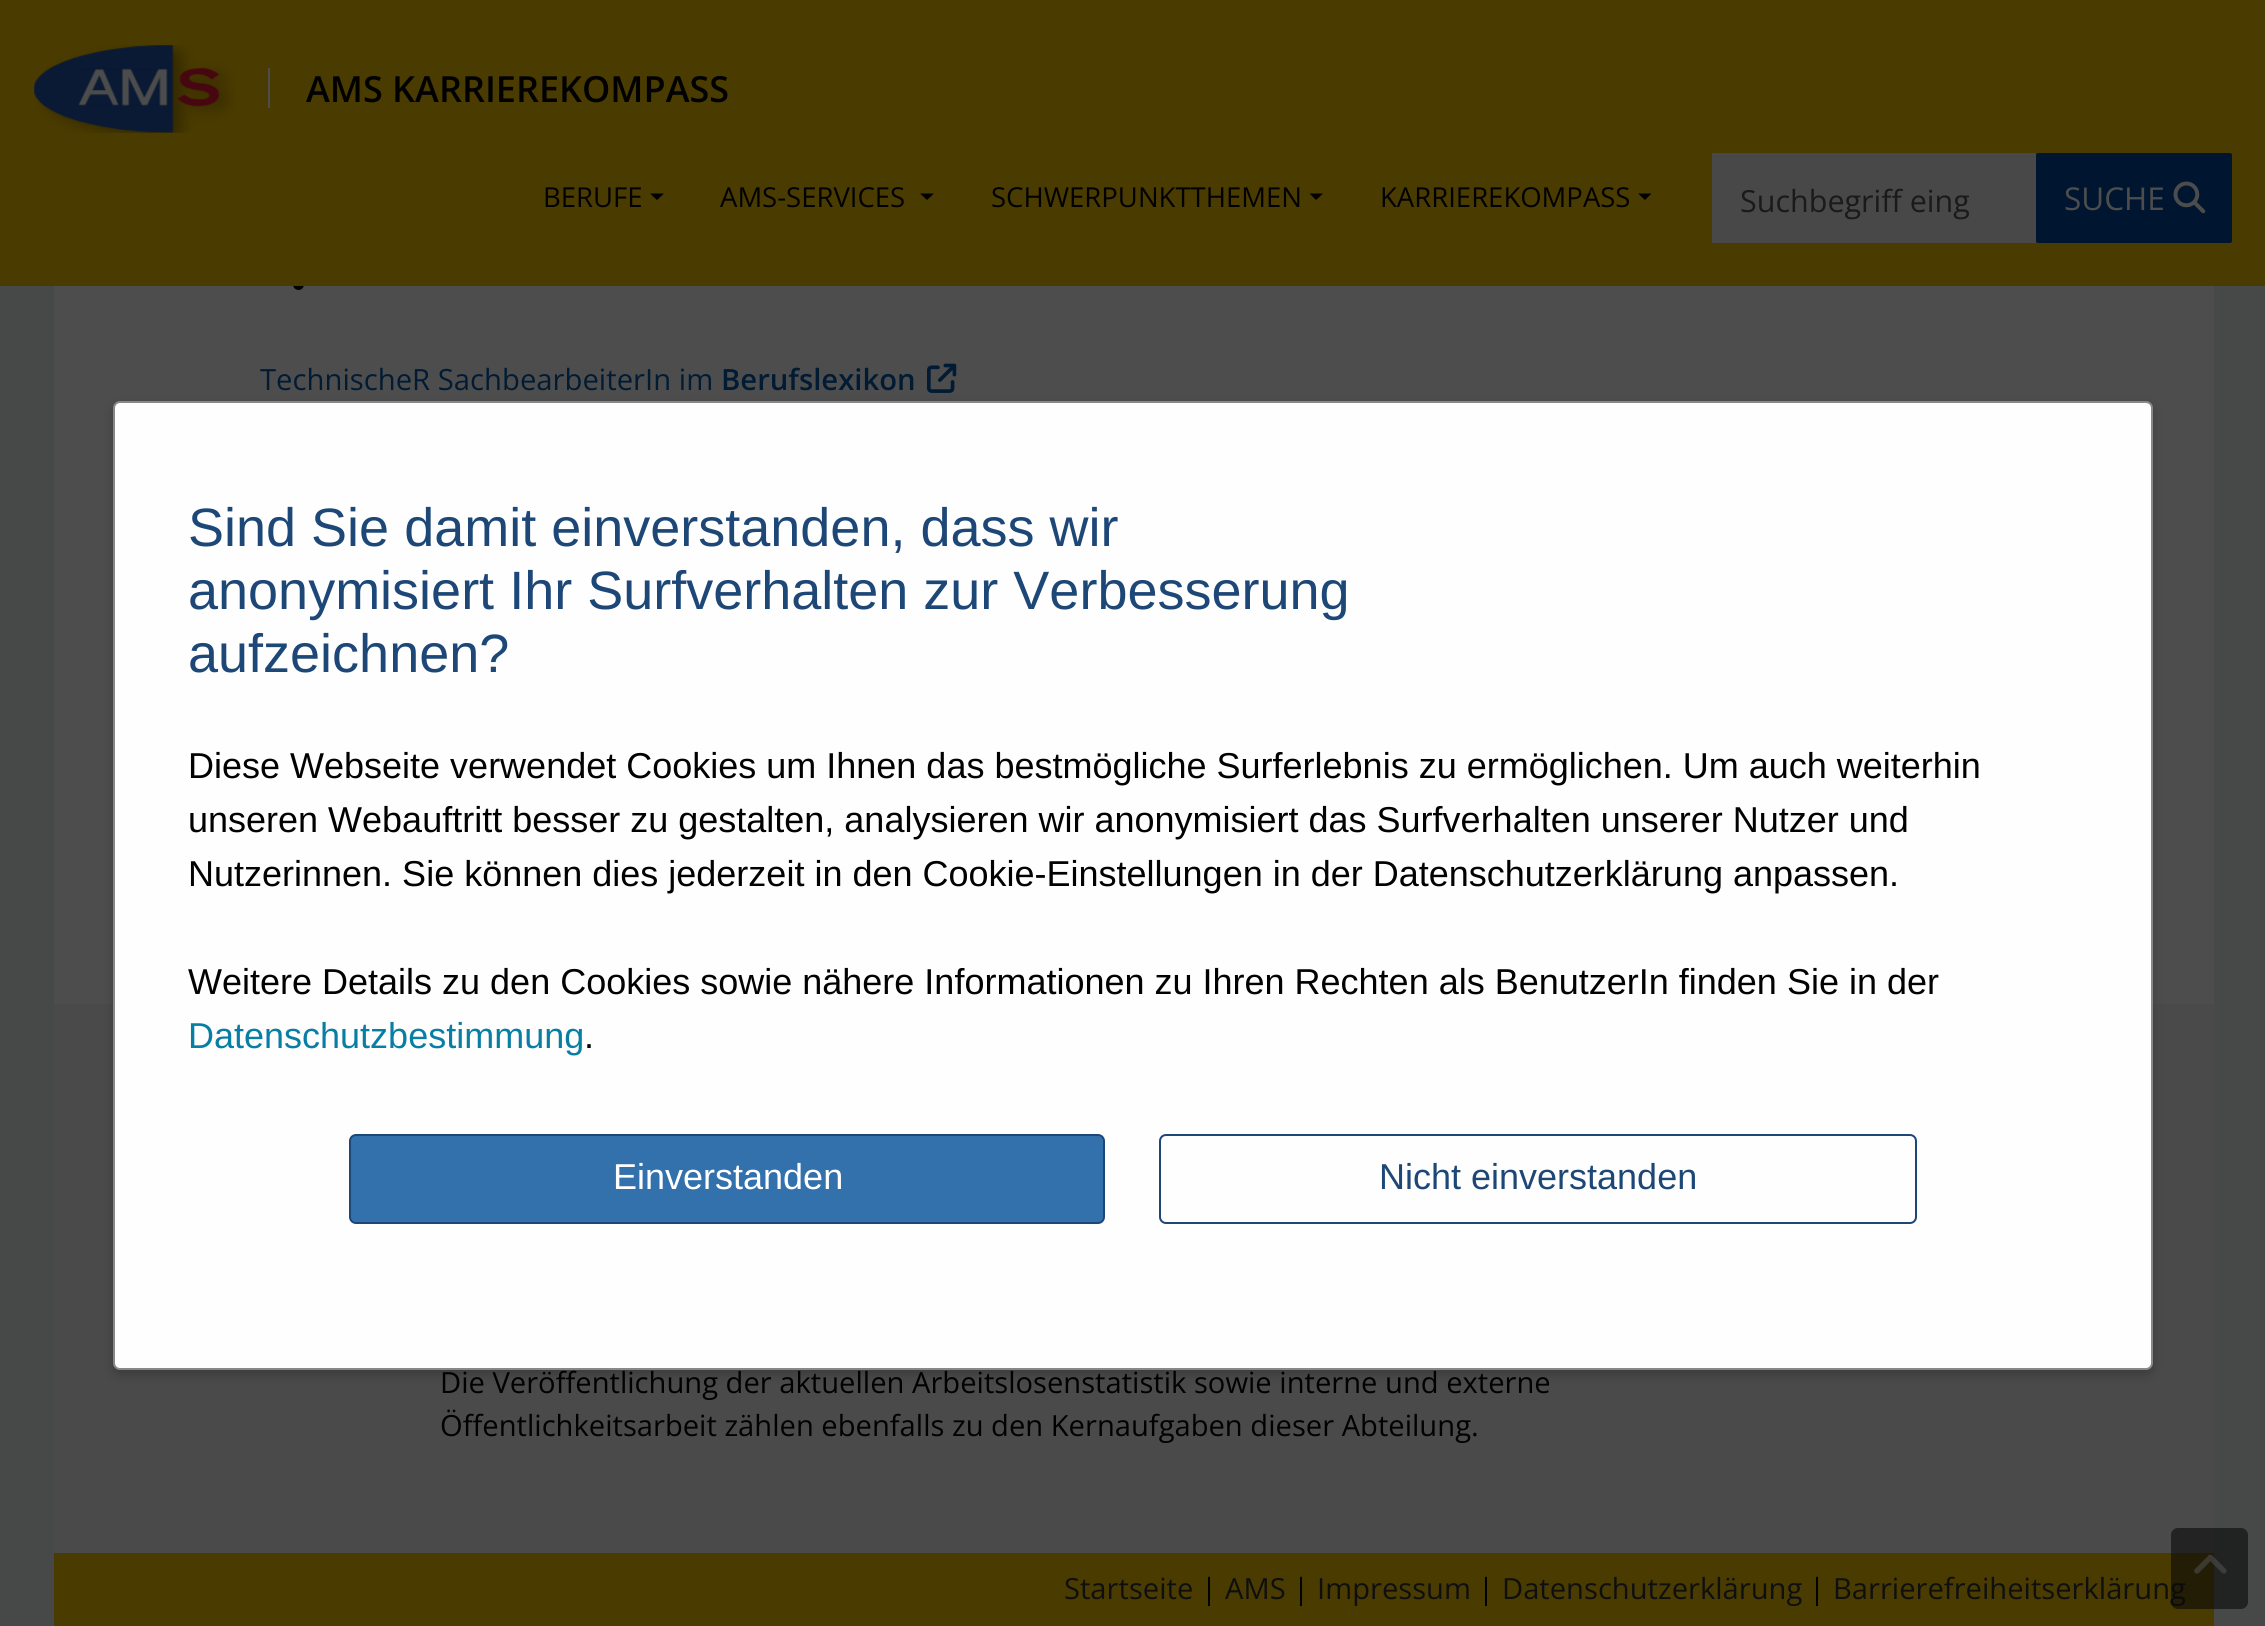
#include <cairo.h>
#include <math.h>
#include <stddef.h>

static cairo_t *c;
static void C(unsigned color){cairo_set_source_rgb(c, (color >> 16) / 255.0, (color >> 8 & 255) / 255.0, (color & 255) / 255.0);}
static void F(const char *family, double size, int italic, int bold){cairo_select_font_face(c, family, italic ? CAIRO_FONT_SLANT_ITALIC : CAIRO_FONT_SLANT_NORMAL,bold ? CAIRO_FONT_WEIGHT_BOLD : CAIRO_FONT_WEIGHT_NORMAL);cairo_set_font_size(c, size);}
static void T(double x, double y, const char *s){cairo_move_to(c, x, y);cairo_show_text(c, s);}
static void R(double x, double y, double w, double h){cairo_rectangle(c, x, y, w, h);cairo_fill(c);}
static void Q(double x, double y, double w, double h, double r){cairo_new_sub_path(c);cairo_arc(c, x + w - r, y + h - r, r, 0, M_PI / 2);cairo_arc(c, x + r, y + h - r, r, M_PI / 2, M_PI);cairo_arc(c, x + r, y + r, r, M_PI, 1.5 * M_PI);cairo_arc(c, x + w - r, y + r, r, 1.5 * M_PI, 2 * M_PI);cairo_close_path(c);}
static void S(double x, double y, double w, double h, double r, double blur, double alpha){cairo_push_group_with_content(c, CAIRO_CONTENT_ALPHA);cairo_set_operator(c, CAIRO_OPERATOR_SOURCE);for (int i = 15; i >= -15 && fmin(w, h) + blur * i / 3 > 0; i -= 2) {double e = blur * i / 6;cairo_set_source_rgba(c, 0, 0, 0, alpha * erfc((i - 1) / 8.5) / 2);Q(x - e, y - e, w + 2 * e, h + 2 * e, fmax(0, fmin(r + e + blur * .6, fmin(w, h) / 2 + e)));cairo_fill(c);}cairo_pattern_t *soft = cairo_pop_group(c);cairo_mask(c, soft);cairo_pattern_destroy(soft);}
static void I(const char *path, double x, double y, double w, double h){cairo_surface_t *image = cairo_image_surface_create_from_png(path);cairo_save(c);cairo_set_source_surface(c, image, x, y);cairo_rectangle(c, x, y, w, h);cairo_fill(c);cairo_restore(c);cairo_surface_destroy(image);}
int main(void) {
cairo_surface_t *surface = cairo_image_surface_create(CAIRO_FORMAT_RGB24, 2265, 1626);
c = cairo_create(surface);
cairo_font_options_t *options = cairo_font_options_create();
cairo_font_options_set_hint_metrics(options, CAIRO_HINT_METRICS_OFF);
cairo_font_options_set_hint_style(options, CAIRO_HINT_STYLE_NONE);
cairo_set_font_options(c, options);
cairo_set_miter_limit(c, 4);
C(0x474848);
cairo_paint(c);
C(0x4d4d4d);
R(54,286,2160,718);
C(0x030303);
cairo_arc(c,298.5,284.5,5.5,0,2 * M_PI);
cairo_fill(c);
C(0x4a3b00);
R(0,0,2265,286);
I("1.png",34,45,202,88);
C(0x4d4d4d);
R(268,68,2,40);
F("Open Sans SemiBold",36,0,0);
C(0x010101);
T(306,102,"AMS KARRIEREKOMPASS");
F("Open Sans",27.5,0,0);
T(543,207,"BERUFE");
C(0x000000);
cairo_new_path(c);
cairo_move_to(c,650,193.5);
cairo_line_to(c,664,193.5);
cairo_line_to(c,657,200);
cairo_close_path(c);
cairo_fill(c);
C(0x010101);
T(720,207,"AMS-SERVICES");
C(0x000000);
cairo_new_path(c);
cairo_move_to(c,920,193.5);
cairo_line_to(c,934,193.5);
cairo_line_to(c,927,200);
cairo_close_path(c);
cairo_fill(c);
C(0x010101);
T(991,207,"SCHWERPUNKTTHEMEN");
C(0x000000);
cairo_new_path(c);
cairo_move_to(c,1309.5,193.5);
cairo_line_to(c,1323,193.5);
cairo_line_to(c,1316,200);
cairo_close_path(c);
cairo_fill(c);
C(0x010101);
T(1380,207,"KARRIEREKOMPASS");
C(0x000000);
cairo_new_path(c);
cairo_move_to(c,1638,193.5);
cairo_line_to(c,1651.5,193.5);
cairo_line_to(c,1645,200);
cairo_close_path(c);
cairo_fill(c);
C(0x484848);
R(1712,153,324,90);
F("Open Sans",30.5,0,0);
C(0x1a1a1b);
T(1740,212,"Suchbegriff eing");
C(0x001630);
Q(2036,153,196,90,2);
cairo_fill(c);
F("Open Sans",31.5,0,0);
C(0x4d4d4d);
T(2064,210,"SUCHE");
I("2.png",2173,181,33,33);
F("Open Sans",29.25,0,0);
C(0x001b33);
T(260,390,"TechnischeR SachbearbeiterIn im");
F("Open Sans SemiBold",29.25,0,0);
T(721,390,"Berufslexikon");
I("3.png",927,363,30,30);
C(0x4a4a4a);
R(54,1004,2160,549);
C(0x000000);
S(113,405,2040,970,7,5.5,.2);
C(0xfefefe);
Q(114,402,2038,967,6);
cairo_fill_preserve(c);
C(0x888888);
cairo_stroke(c);
F("Liberation Sans",54,0,0);
C(0x1d4777);
T(188,546,"Sind Sie damit einverstanden, dass wir");
T(188,609,"anonymisiert Ihr Surfverhalten zur Verbesserung");
T(188,672,"aufzeichnen?");
F("Liberation Sans",36,0,0);
C(0x010101);
T(188,778,"Diese Webseite verwendet Cookies um Ihnen das bestmögliche Surferlebnis zu ermöglichen. Um auch weiterhin");
T(188,832,"unseren Webauftritt besser zu gestalten, analysieren wir anonymisiert das Surfverhalten unserer Nutzer und");
T(188,886,"Nutzerinnen. Sie können dies jederzeit in den Cookie-Einstellungen in der Datenschutzerklärung anpassen.");
T(188,994,"Weitere Details zu den Cookies sowie nähere Informationen zu Ihren Rechten als BenutzerIn finden Sie in der");
C(0x097ea5);
T(188,1048,"Datenschutzbestimmung");
C(0x010101);
T(584,1048,".");
C(0x3371ad);
Q(350,1135,754,88,6);
cairo_fill_preserve(c);
C(0x1d4777);
cairo_stroke(c);
C(0xffffff);
T(613,1189,"Einverstanden");
Q(1160,1135,756,88,6);
C(0x1d4777);
cairo_stroke(c);
T(1379,1189,"Nicht einverstanden");
F("Open Sans",29.15,0,0);
C(0x010101);
T(440,1393,"Die Veröffentlichung der aktuellen Arbeitslosenstatistik sowie interne und externe");
T(440,1436,"Öffentlichkeitsarbeit zählen ebenfalls zu den Kernaufgaben dieser Abteilung.");
C(0x4a3b00);
R(54,1553,2160,73);
C(0x0f0f0f);
T(1064,1599,"Startseite");
C(0x010101);
T(1201,1599,"|");
C(0x0f0f0f);
T(1225,1599,"AMS");
C(0x010101);
T(1293,1599,"|");
C(0x0f0f0f);
T(1317,1599,"Impressum");
C(0x010101);
T(1478,1599,"|");
C(0x0f0f0f);
T(1502,1599,"Datenschutzerklärung");
C(0x010101);
T(1809,1599,"|");
C(0x0f0f0f);
T(1833,1599,"Barrierefreiheitserklärung");
cairo_set_source_rgba(c,0.039,0.039,0.039,0.6);
Q(2171,1528,77,81,7);
cairo_fill(c);
I("4.png",2194,1554,33,20);
cairo_surface_write_to_png(surface, "o.png");
cairo_font_options_destroy(options);
cairo_destroy(c);
cairo_surface_destroy(surface);
return 0;
}
